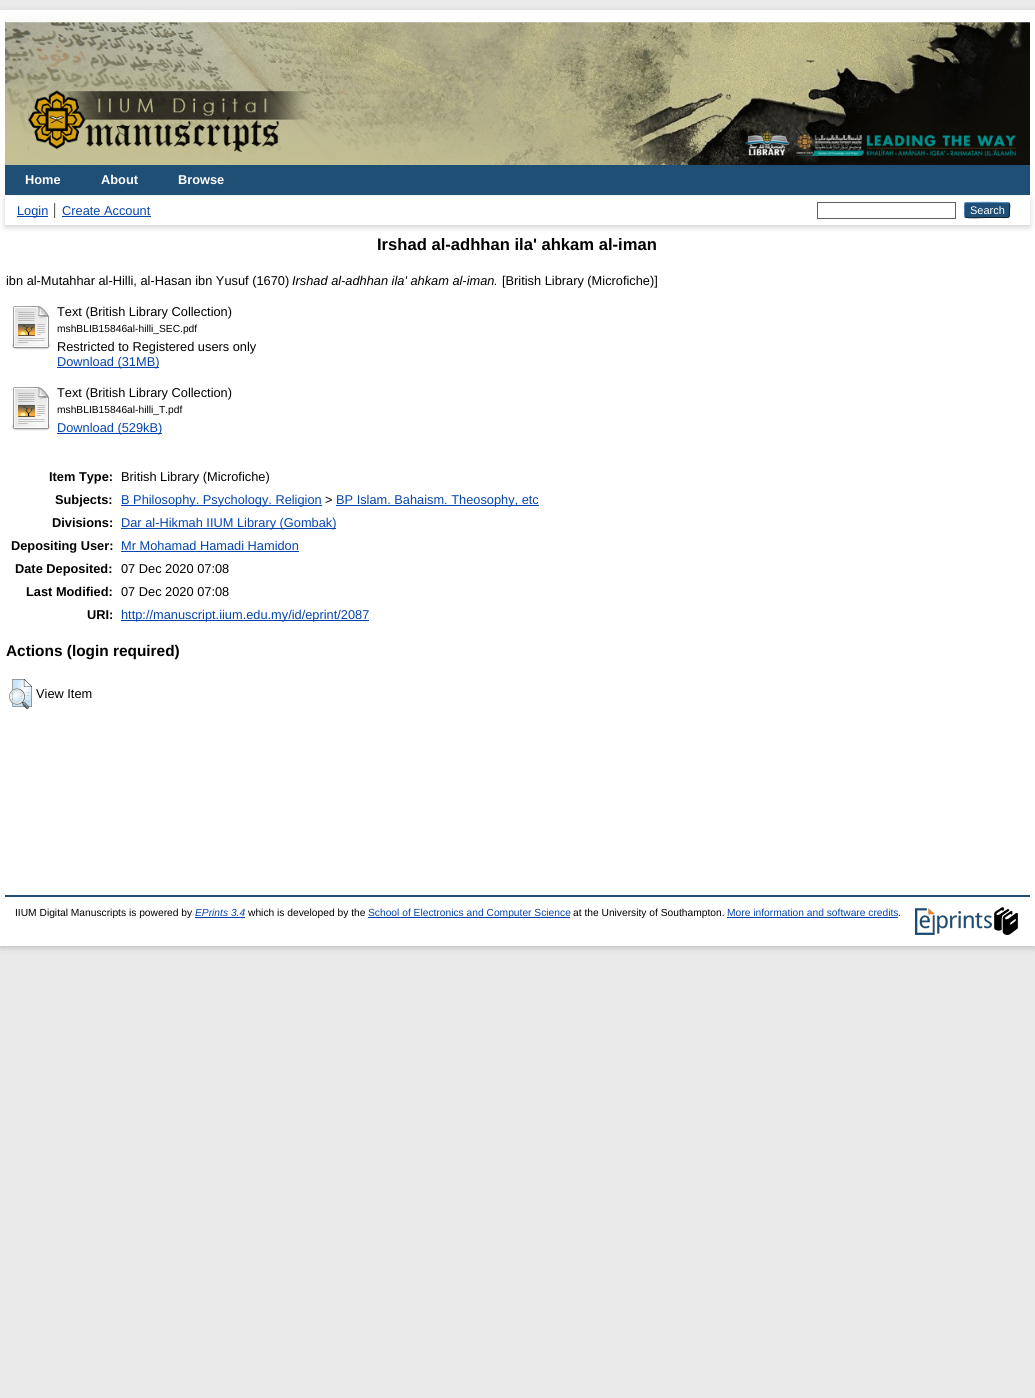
#include <cairo.h>
#include <math.h>
#include <stddef.h>

static cairo_t *c;
static void C(unsigned color){cairo_set_source_rgb(c, (color >> 16) / 255.0, (color >> 8 & 255) / 255.0, (color & 255) / 255.0);}
static void F(const char *family, double size, int italic, int bold){cairo_select_font_face(c, family, italic ? CAIRO_FONT_SLANT_ITALIC : CAIRO_FONT_SLANT_NORMAL,bold ? CAIRO_FONT_WEIGHT_BOLD : CAIRO_FONT_WEIGHT_NORMAL);cairo_set_font_size(c, size);}
static void T(double x, double y, const char *s){cairo_move_to(c, x, y);cairo_show_text(c, s);}
static void R(double x, double y, double w, double h){cairo_rectangle(c, x, y, w, h);cairo_fill(c);}
static void Q(double x, double y, double w, double h, double r){cairo_new_sub_path(c);cairo_arc(c, x + w - r, y + h - r, r, 0, M_PI / 2);cairo_arc(c, x + r, y + h - r, r, M_PI / 2, M_PI);cairo_arc(c, x + r, y + r, r, M_PI, 1.5 * M_PI);cairo_arc(c, x + w - r, y + r, r, 1.5 * M_PI, 2 * M_PI);cairo_close_path(c);}
static void S(double x, double y, double w, double h, double r, double blur, double alpha){cairo_push_group_with_content(c, CAIRO_CONTENT_ALPHA);cairo_set_operator(c, CAIRO_OPERATOR_SOURCE);for (int i = 15; i >= -15 && fmin(w, h) + blur * i / 3 > 0; i -= 2) {double e = blur * i / 6;cairo_set_source_rgba(c, 0, 0, 0, alpha * erfc((i - 1) / 8.5) / 2);Q(x - e, y - e, w + 2 * e, h + 2 * e, fmax(0, fmin(r + e + blur * .6, fmin(w, h) / 2 + e)));cairo_fill(c);}cairo_pattern_t *soft = cairo_pop_group(c);cairo_mask(c, soft);cairo_pattern_destroy(soft);}
static void I(const char *path, double x, double y, double w, double h){cairo_surface_t *image = cairo_image_surface_create_from_png(path);cairo_save(c);cairo_set_source_surface(c, image, x, y);cairo_rectangle(c, x, y, w, h);cairo_fill(c);cairo_restore(c);cairo_surface_destroy(image);}
int main(void) {
cairo_surface_t *surface = cairo_image_surface_create(CAIRO_FORMAT_RGB24, 1035, 1398);
c = cairo_create(surface);
cairo_font_options_t *options = cairo_font_options_create();
cairo_font_options_set_hint_metrics(options, CAIRO_HINT_METRICS_OFF);
cairo_font_options_set_hint_style(options, CAIRO_HINT_STYLE_NONE);
cairo_set_font_options(c, options);
cairo_set_miter_limit(c, 4);
C(0xeaeaea);
cairo_paint(c);
C(0x646464);
S(0,12,1035,936,0,3,.3);
C(0xffffff);
R(0,10,1035,936);
I("1.png",5,15,1025,150);
C(0x204f76);
R(5,165,1025,30);
F("Liberation Sans",12.8,0,1);
C(0xffffff);
T(25,184,"Home");
T(101,184,"About");
T(178,184,"Browse");
C(0x646464);
S(5,198,1025,29,0,3,.3);
C(0xffffff);
R(5,196,1025,29);
C(0x0645ad);
R(17,216,31,1);
F("Liberation Sans",12.8,0,0);
T(17,215,"Login");
C(0x606060);
R(54,203,1,15);
C(0x0645ad);
T(62,215,"Create Account");
C(0xe8e8e8);
R(55,203,1,15);
C(0x0645ad);
R(62,216,89,1);
cairo_rectangle(c,817.5,202.5,138,16);
C(0x606060);
cairo_set_line_width(c,1);
cairo_stroke(c);
C(0x1f4f76);
Q(964,202,46,16,3);
cairo_fill(c);
cairo_new_path(c);
cairo_move_to(c,965,203);
cairo_curve_to(c,966.5,202,1007.5,202,1009,203);
C(0x5b97c7);
cairo_stroke(c);
cairo_new_path(c);
cairo_move_to(c,1009,203);
cairo_curve_to(c,1010.5,205,1009.5,208,1009.5,210);
cairo_curve_to(c,1009.5,219,1010,217.5,1000.5,217.5);
cairo_line_to(c,987,217.5);
cairo_curve_to(c,983.5,217.5,967,218.5,965,217);
C(0x0d2131);
cairo_stroke(c);
cairo_new_path(c);
cairo_move_to(c,965,217);
cairo_curve_to(c,964,215.5,964.5,211.5,964.5,210);
cairo_curve_to(c,964.5,208.5,964,204.5,965,203);
C(0x5287b3);
cairo_stroke(c);
F("Liberation Sans",11,0,0);
C(0xffffff);
T(970,214,"Search");
F("Liberation Sans",16.6,0,1);
C(0x000000);
T(377,250,"Irshad al-adhhan ila' ahkam al-iman");
F("Liberation Sans",12.8,0,0);
T(6,285,"ibn al-Mutahhar al-Hilli, al-Hasan ibn Yusuf (1670)");
F("Liberation Sans",12.8,1,0);
T(292,285,"Irshad al-adhhan ila' ahkam al-iman.");
F("Liberation Sans",12.8,0,0);
T(502,285,"[British Library (Microfiche)]");
I("2.png",11,306,40,44);
T(57,316,"Text (British Library Collection)");
F("Liberation Sans",10.25,0,0);
T(57,332,"mshBLIB15846al-hilli_SEC.pdf");
F("Liberation Sans",12.8,0,0);
T(57,351,"Restricted to Registered users only");
C(0x0645ad);
R(57,367,102,1);
T(57,366,"Download (31MB)");
I("2.png",11,387,40,44);
C(0x000000);
T(57,397,"Text (British Library Collection)");
F("Liberation Sans",10.25,0,0);
T(57,413,"mshBLIB15846al-hilli_T.pdf");
C(0x0645ad);
R(57,433,105,1);
F("Liberation Sans",12.8,0,0);
T(57,432,"Download (529kB)");
F("Liberation Sans",12.8,0,1);
C(0x000000);
T(49,481,"Item Type:");
F("Liberation Sans",12.8,0,0);
T(121,481,"British Library (Microfiche)");
F("Liberation Sans",12.8,0,1);
T(55,504,"Subjects:");
C(0x0645ad);
R(121,505,201,1);
F("Liberation Sans",12.8,0,0);
T(121,504,"B Philosophy. Psychology. Religion");
C(0x000000);
T(325,504,">");
C(0x0645ad);
R(336,505,203,1);
T(336,504,"BP Islam. Bahaism. Theosophy, etc");
F("Liberation Sans",12.8,0,1);
C(0x000000);
T(52,527,"Divisions:");
C(0x0645ad);
R(121,528,215,1);
F("Liberation Sans",12.8,0,0);
T(121,527,"Dar al-Hikmah IIUM Library (Gombak)");
F("Liberation Sans",12.8,0,1);
C(0x000000);
T(11,550,"Depositing User:");
F("Liberation Sans",12.8,0,0);
C(0x0645ad);
T(121,550,"Mr Mohamad Hamadi Hamidon");
R(121,551,178,1);
F("Liberation Sans",12.8,0,1);
C(0x000000);
T(15,573,"Date Deposited:");
F("Liberation Sans",12.8,0,0);
T(121,573,"07 Dec 2020 07:08");
F("Liberation Sans",12.8,0,1);
T(26,596,"Last Modified:");
F("Liberation Sans",12.8,0,0);
T(121,596,"07 Dec 2020 07:08");
F("Liberation Sans",12.8,0,1);
T(87,619,"URI:");
C(0x0645ad);
R(121,620,248,1);
F("Liberation Sans",12.8,0,0);
T(121,619,"http://manuscript.iium.edu.my/id/eprint/2087");
F("Liberation Sans",15.4,0,1);
C(0x000000);
T(6,656,"Actions (login required)");
I("3.png",9,679,23,30);
F("Liberation Sans",12.8,0,0);
T(36,698,"View Item");
C(0x204f76);
R(5,895,1025,2);
F("Liberation Sans",10.25,0,0);
C(0x000000);
T(15,916,"IIUM Digital Manuscripts is powered by");
F("Liberation Sans",10.25,1,0);
C(0x0645ad);
T(195,916,"EPrints 3.4");
R(195,917,50,1);
F("Liberation Sans",10.25,0,0);
C(0x000000);
T(248,916,"which is developed by the");
C(0x0645ad);
R(368,917,202,1);
T(368,916,"School of Electronics and Computer Science");
C(0x000000);
T(573,916,"at the University of Southampton.");
C(0x0645ad);
T(727,916,"More information and software credits");
R(727,917,171,1);
C(0x000000);
T(898,916,".");
I("4.png",915,908,77,27);
I("5.png",993,907,26,28);
cairo_surface_write_to_png(surface, "o.png");
cairo_font_options_destroy(options);
cairo_destroy(c);
cairo_surface_destroy(surface);
return 0;
}
